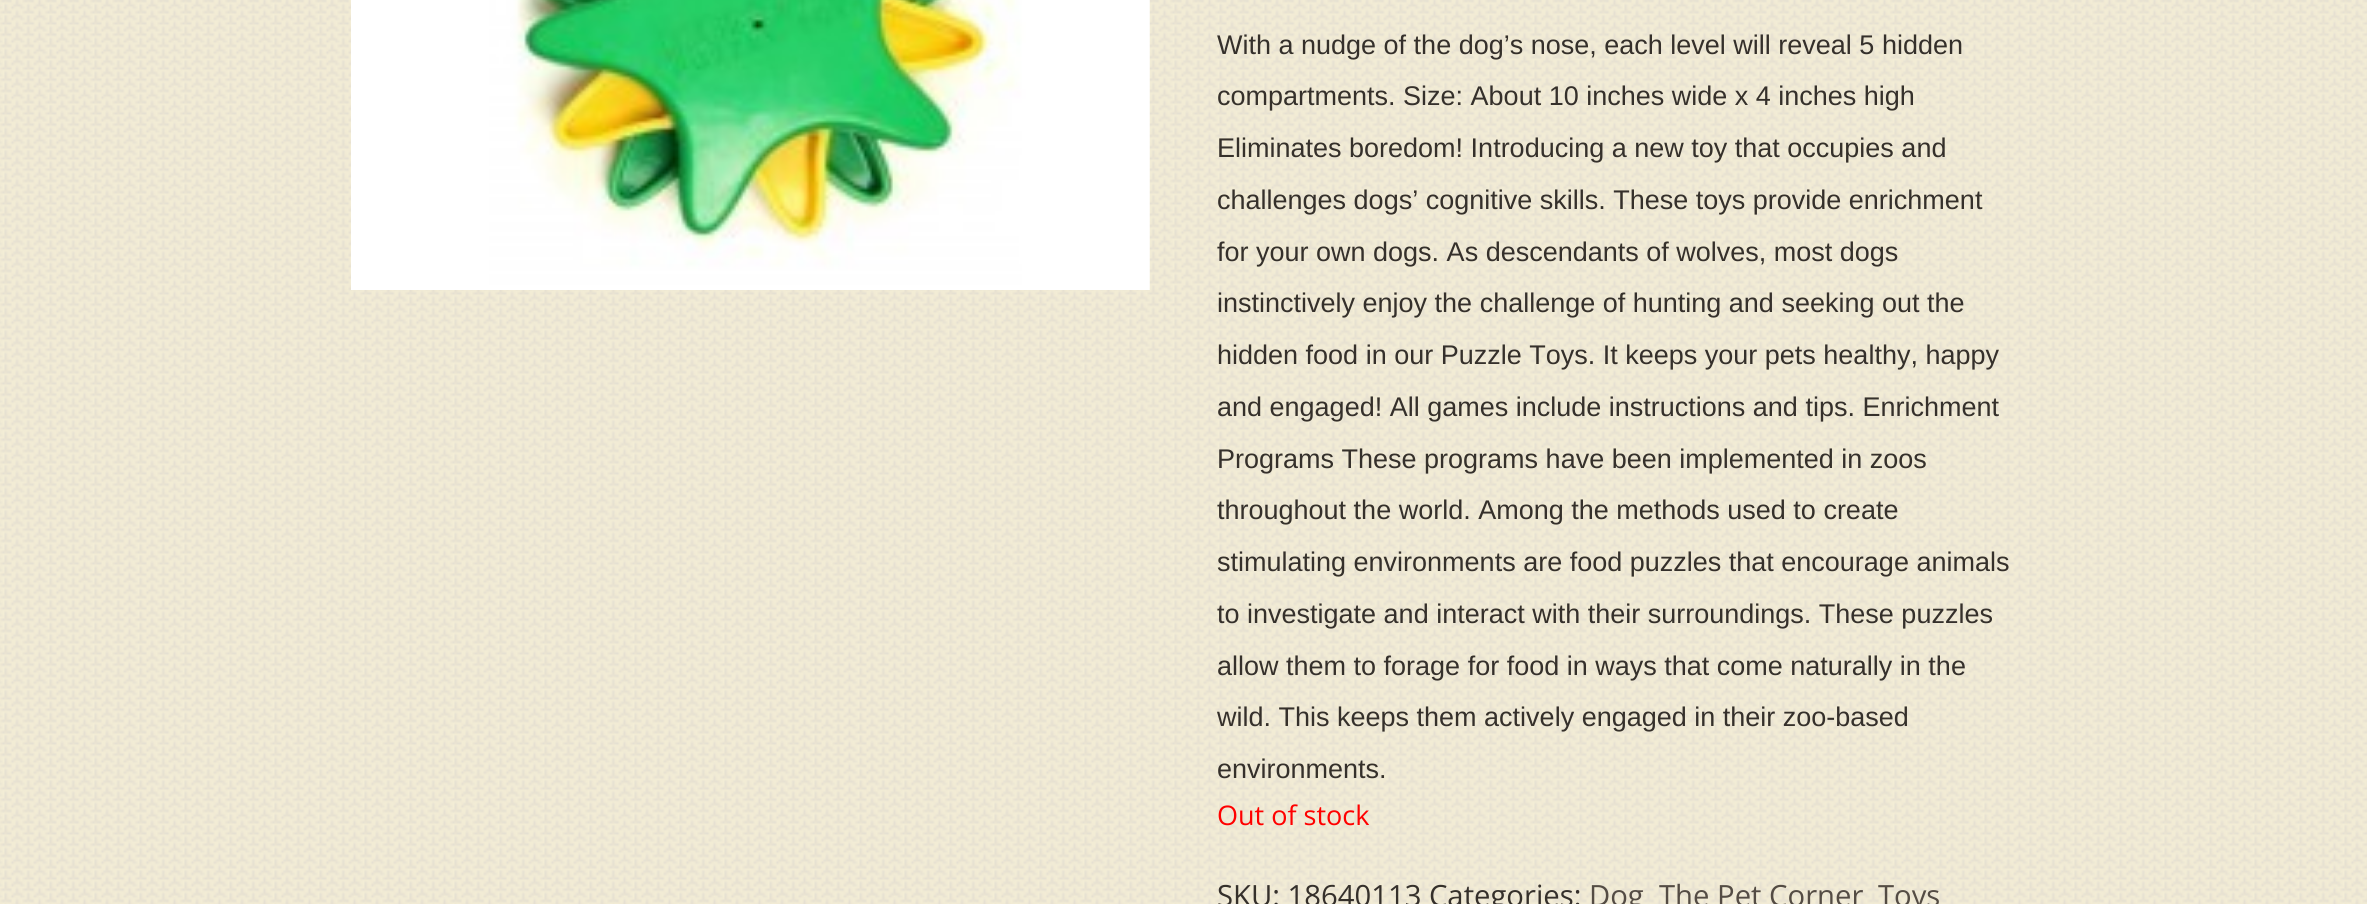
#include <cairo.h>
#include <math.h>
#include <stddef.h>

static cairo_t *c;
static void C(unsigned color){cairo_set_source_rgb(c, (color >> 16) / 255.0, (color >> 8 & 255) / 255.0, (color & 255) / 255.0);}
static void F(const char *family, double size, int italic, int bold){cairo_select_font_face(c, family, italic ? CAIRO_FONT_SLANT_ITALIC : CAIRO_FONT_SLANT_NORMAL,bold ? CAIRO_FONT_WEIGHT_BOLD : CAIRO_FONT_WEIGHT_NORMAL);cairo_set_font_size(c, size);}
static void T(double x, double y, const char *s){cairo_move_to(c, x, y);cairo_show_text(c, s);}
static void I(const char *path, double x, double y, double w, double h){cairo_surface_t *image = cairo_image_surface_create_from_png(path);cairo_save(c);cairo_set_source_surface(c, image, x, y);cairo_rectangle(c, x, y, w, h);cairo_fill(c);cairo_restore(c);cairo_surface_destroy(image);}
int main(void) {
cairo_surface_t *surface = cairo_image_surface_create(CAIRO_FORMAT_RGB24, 2367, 904);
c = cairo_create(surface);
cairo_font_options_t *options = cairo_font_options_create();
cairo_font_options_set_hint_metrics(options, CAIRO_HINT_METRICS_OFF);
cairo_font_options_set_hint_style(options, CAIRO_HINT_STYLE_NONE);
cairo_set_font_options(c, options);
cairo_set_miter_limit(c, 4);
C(0xffffff);
cairo_paint(c);
I("1.png",0,0,2367,904);
I("2.png",351,0,799,290);
F("Liberation Sans",27,0,0);
C(0x35302b);
T(1217,54,"With a nudge of the dog’s nose, each level will reveal 5 hidden");
T(1217,105,"compartments. Size: About 10 inches wide x 4 inches high");
T(1217,157,"Eliminates boredom! Introducing a new toy that occupies and");
T(1217,209,"challenges dogs’ cognitive skills. These toys provide enrichment");
T(1217,261,"for your own dogs. As descendants of wolves, most dogs");
T(1217,312,"instinctively enjoy the challenge of hunting and seeking out the");
T(1217,364,"hidden food in our Puzzle Toys. It keeps your pets healthy, happy");
T(1217,416,"and engaged! All games include instructions and tips. Enrichment");
T(1217,468,"Programs These programs have been implemented in zoos");
T(1217,519,"throughout the world. Among the methods used to create");
T(1217,571,"stimulating environments are food puzzles that encourage animals");
T(1217,623,"to investigate and interact with their surroundings. These puzzles");
T(1217,675,"allow them to forage for food in ways that come naturally in the");
T(1217,726,"wild. This keeps them actively engaged in their zoo-based");
T(1217,778,"environments.");
F("Open Sans",27,0,0);
C(0xff0000);
T(1217,825,"Out of stock");
F("Open Sans",29.25,0,0);
C(0x35302b);
T(1217,906,"SKU: 18640113 Categories:");
C(0x544c44);
T(1589,906,"Dog");
T(1659,906,"The Pet Corner");
T(1878,906,"Toys");
cairo_surface_write_to_png(surface, "o.png");
cairo_font_options_destroy(options);
cairo_destroy(c);
cairo_surface_destroy(surface);
return 0;
}
